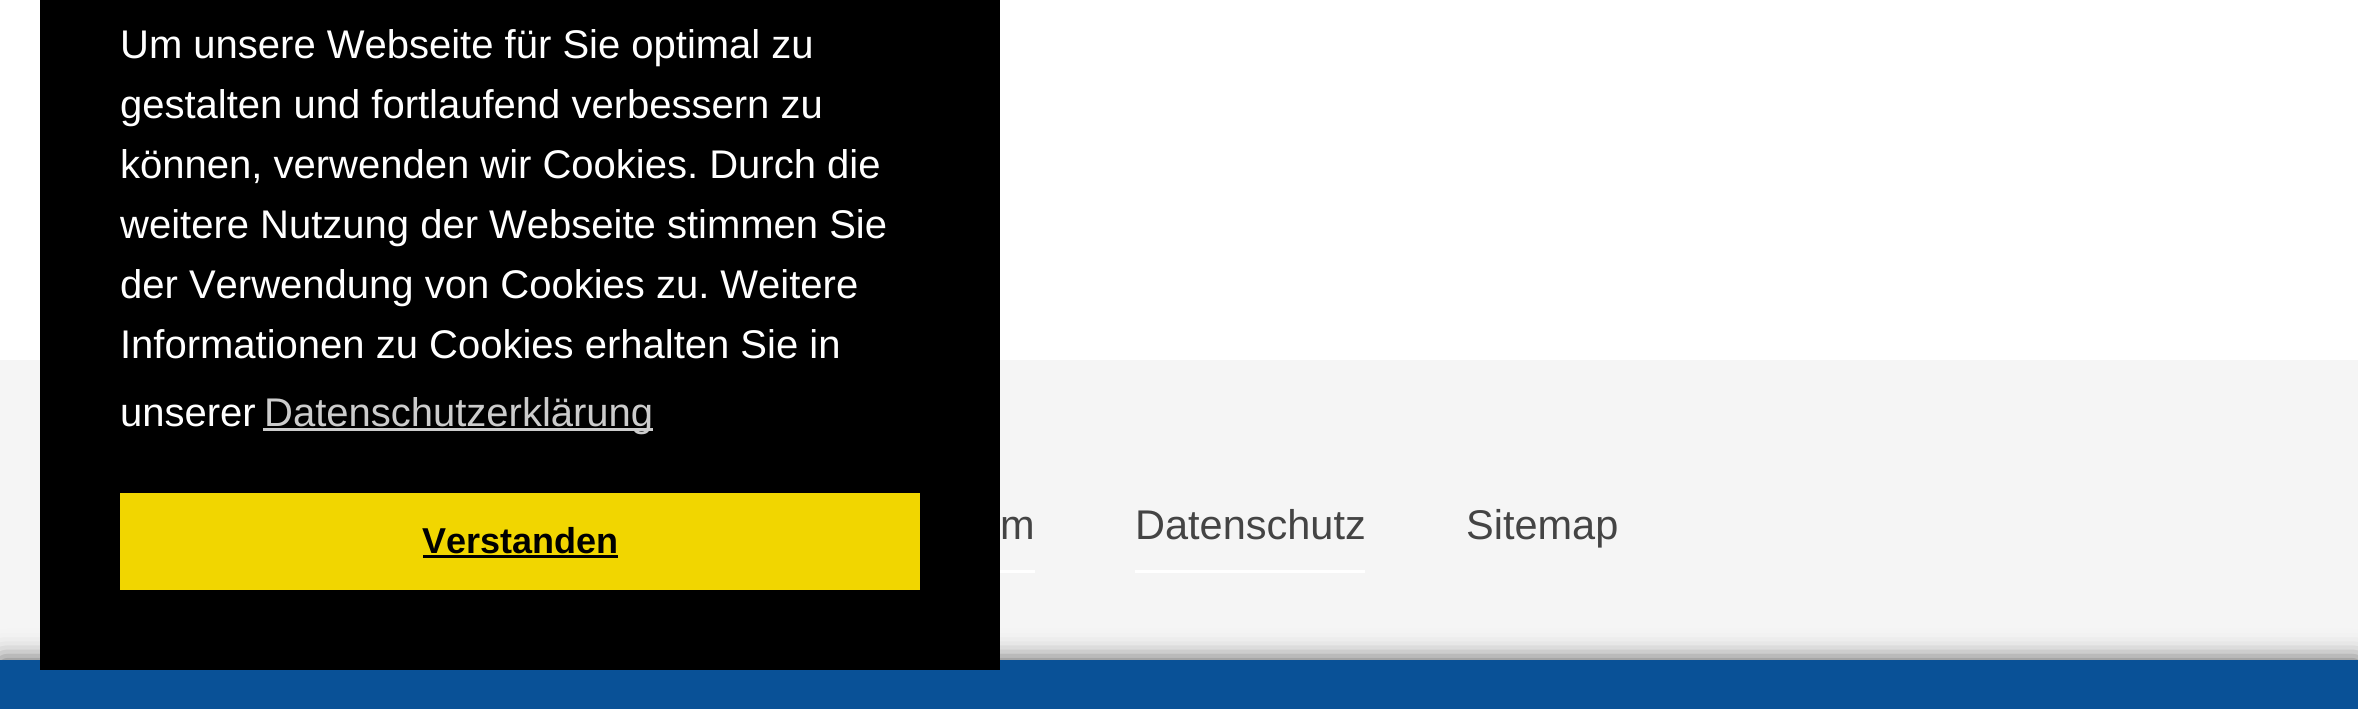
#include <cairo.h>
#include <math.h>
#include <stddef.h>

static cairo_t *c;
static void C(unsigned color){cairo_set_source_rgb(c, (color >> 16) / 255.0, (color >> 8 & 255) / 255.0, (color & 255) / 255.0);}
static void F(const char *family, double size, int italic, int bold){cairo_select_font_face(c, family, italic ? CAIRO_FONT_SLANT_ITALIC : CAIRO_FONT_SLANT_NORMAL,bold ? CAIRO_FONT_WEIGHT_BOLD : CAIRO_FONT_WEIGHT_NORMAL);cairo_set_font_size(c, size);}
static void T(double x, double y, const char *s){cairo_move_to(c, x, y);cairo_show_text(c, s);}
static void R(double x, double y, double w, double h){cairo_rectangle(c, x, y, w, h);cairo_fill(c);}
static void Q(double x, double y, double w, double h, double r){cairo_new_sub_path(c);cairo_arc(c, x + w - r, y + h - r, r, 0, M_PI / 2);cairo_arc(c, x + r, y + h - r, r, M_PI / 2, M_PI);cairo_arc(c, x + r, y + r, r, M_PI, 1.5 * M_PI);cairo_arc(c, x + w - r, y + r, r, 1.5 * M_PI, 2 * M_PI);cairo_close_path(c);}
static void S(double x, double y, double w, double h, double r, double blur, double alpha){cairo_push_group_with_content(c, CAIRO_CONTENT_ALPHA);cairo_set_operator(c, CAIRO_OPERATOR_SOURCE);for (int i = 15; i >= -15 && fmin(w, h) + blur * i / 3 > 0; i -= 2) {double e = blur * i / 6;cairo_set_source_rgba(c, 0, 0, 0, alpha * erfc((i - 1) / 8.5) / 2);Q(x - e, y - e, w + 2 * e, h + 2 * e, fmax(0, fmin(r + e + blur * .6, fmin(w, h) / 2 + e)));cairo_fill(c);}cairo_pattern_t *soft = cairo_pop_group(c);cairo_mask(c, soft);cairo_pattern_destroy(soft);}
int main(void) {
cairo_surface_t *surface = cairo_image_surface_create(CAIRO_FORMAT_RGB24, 2358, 709);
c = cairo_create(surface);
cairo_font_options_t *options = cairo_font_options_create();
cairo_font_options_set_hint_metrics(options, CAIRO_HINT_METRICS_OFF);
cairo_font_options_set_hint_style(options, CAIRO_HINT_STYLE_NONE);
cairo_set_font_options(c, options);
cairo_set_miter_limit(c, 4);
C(0xffffff);
cairo_paint(c);
C(0xf5f5f5);
R(0,360,2358,300);
C(0x555555);
S(0,660,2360,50,0,12.5,1);
C(0x095197);
R(0,660,2358,49);
C(0x000000);
R(40,0,960,670);
F("Liberation Sans",40,0,0);
C(0xffffff);
T(120,58,"Um unsere Webseite für Sie optimal zu");
T(120,118,"gestalten und fortlaufend verbessern zu");
T(120,178,"können, verwenden wir Cookies. Durch die");
T(120,238,"weitere Nutzung der Webseite stimmen Sie");
T(120,298,"der Verwendung von Cookies zu. Weitere");
T(120,358,"Informationen zu Cookies erhalten Sie in");
T(120,426,"unserer");
C(0xcccccc);
R(263,428,390,3);
T(264,426,"Datenschutzerklärung");
C(0xf1d600);
R(120,493,800,97);
F("Liberation Sans",36,0,1);
C(0x000000);
T(422,553,"Verstanden");
R(423,555,195,3);
C(0xffffff);
R(1000,570,35,3);
F("Liberation Sans",41.5,0,0);
C(0x444444);
T(1000,539,"m");
C(0xffffff);
R(1135,570,230,3);
C(0x444444);
T(1135,539,"Datenschutz");
T(1466,539,"Sitemap");
cairo_surface_write_to_png(surface, "o.png");
cairo_font_options_destroy(options);
cairo_destroy(c);
cairo_surface_destroy(surface);
return 0;
}
